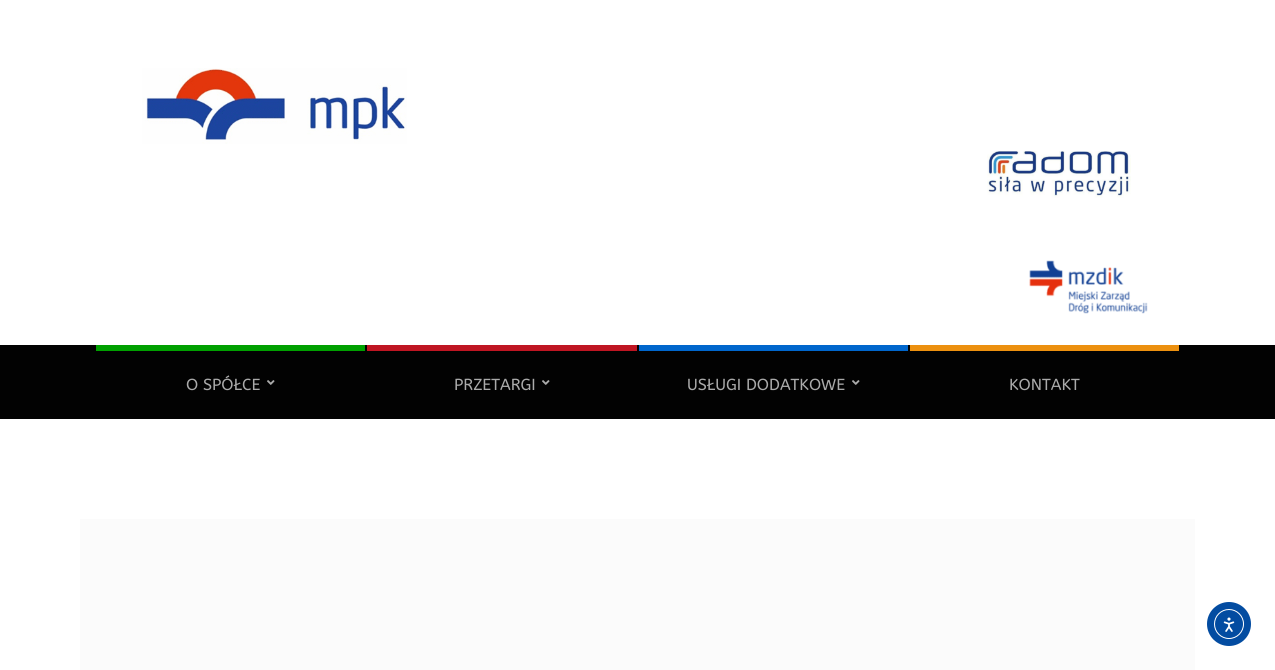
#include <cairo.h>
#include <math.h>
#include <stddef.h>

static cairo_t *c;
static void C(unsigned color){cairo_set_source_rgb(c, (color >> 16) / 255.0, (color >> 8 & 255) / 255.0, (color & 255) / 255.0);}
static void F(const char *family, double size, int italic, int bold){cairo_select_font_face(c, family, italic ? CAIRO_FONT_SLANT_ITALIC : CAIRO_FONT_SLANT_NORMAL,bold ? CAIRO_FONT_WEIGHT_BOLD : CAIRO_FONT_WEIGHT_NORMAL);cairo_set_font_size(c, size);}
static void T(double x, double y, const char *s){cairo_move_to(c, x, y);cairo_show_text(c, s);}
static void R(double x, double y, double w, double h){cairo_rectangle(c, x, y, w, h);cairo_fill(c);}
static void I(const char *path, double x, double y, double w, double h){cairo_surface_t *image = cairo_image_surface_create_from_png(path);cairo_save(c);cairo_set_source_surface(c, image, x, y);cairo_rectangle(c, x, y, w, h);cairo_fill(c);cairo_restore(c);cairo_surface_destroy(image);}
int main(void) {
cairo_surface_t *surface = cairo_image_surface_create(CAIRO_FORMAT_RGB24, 1275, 670);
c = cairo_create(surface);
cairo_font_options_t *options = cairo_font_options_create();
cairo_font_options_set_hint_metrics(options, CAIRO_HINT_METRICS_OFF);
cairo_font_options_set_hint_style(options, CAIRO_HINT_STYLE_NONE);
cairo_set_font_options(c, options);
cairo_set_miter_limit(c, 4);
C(0xffffff);
cairo_paint(c);
I("1.png",142,68,265,76);
I("2.png",987,151,144,47);
I("3.png",1029,260,119,54);
C(0x020202);
R(0,345,1275,74);
C(0x00a000);
R(96,345,269,6);
F("ABeeZee",16,0,0);
C(0xaaaaaa);
T(186,390,"O SPÓŁCE");
I("4.png",267,380,8,5);
C(0xbf1522);
R(367,345,270,6);
C(0xaaaaaa);
T(454,390,"PRZETARGI");
I("4.png",542,380,8,5);
C(0x0066cc);
R(639,345,269,6);
C(0xaaaaaa);
T(687,390,"USŁUGI DODATKOWE");
I("4.png",852,380,8,5);
C(0xec900f);
R(910,345,269,6);
C(0xaaaaaa);
T(1009,390,"KONTAKT");
C(0xfbfbfb);
R(80,519,1115,151);
C(0x034ca1);
cairo_new_path(c);
cairo_arc(c,1229,624,22,0,2 * M_PI);
cairo_fill(c);
cairo_arc(c,1229,624,14.5,0,2 * M_PI);
C(0xffffff);
cairo_set_line_width(c,1);
cairo_stroke(c);
I("5.png",1223,617,12,15);
cairo_surface_write_to_png(surface, "o.png");
cairo_font_options_destroy(options);
cairo_destroy(c);
cairo_surface_destroy(surface);
return 0;
}
